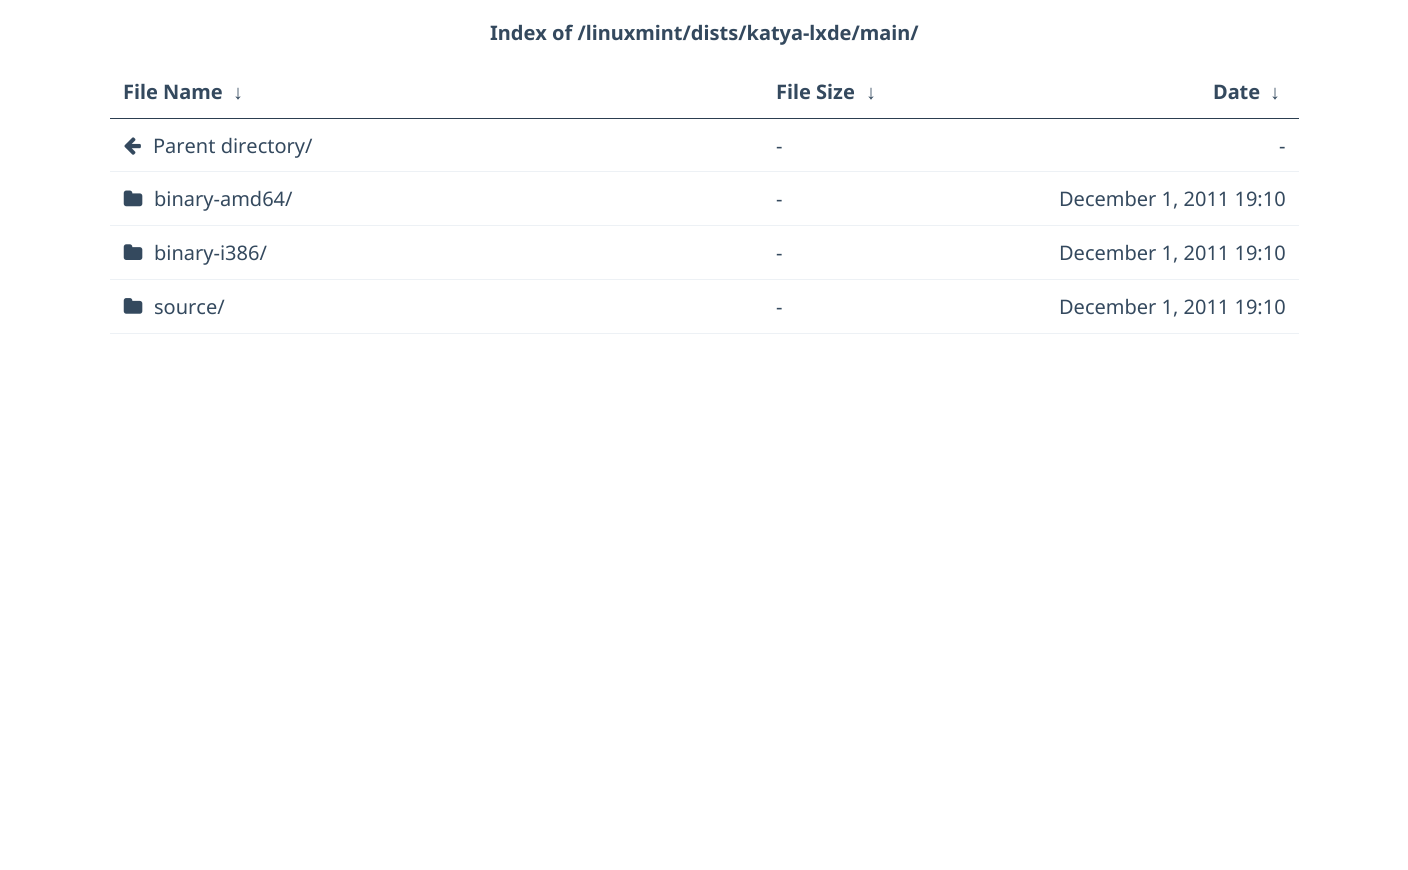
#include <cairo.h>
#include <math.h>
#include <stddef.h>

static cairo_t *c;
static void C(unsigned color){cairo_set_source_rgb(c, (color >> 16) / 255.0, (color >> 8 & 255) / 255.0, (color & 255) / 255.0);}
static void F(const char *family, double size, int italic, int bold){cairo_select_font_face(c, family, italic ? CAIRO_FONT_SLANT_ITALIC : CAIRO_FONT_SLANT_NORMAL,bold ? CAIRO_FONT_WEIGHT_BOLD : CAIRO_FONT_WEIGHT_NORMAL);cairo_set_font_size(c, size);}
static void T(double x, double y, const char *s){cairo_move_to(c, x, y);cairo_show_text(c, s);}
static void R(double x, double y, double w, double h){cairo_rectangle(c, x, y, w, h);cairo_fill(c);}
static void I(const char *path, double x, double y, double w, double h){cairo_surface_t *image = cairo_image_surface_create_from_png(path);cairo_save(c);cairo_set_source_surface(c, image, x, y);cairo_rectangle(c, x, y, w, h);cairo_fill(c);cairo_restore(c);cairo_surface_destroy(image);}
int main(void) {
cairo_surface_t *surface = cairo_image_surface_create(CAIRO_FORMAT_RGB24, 1408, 870);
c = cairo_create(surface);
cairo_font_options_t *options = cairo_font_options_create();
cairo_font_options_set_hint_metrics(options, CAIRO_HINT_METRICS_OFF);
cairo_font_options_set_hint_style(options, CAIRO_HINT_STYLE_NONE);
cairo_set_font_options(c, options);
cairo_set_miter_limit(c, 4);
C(0xffffff);
cairo_paint(c);
F("Noto Sans",20,0,1);
C(0x34495e);
T(490,40,"Index of /linuxmint/dists/katya-lxde/main/");
C(0x2c3e50);
R(110,118,1189,1);
C(0x34495e);
T(123,99,"File Name");
F("Liberation Sans",20,0,1);
T(233,99,"↓");
F("Noto Sans",20,0,1);
T(776,99,"File Size");
F("Liberation Sans",20,0,1);
T(866,99,"↓");
F("Noto Sans",20,0,1);
T(1213,99,"Date");
F("Liberation Sans",20,0,1);
T(1270,99,"↓");
I("1.png",124,137,17,18);
F("Noto Sans",20,0,0);
T(153,153,"Parent directory/");
T(776,153,"-");
C(0xedf1f5);
R(110,171,1189,1);
C(0x34495e);
T(1279,153,"-");
I("2.png",123,190,20,17);
T(154,206,"binary-amd64/");
T(776,206,"-");
C(0xedf1f5);
R(110,225,1189,1);
C(0x34495e);
T(1059,206,"December 1, 2011 19:10");
I("3.png",123,244,20,16);
T(154,260,"binary-i386/");
T(776,260,"-");
C(0xedf1f5);
R(110,279,1189,1);
C(0x34495e);
T(1059,260,"December 1, 2011 19:10");
I("4.png",123,298,20,16);
T(154,314,"source/");
T(776,314,"-");
C(0xedf1f5);
R(110,333,1189,1);
C(0x34495e);
T(1059,314,"December 1, 2011 19:10");
cairo_surface_write_to_png(surface, "o.png");
cairo_font_options_destroy(options);
cairo_destroy(c);
cairo_surface_destroy(surface);
return 0;
}
